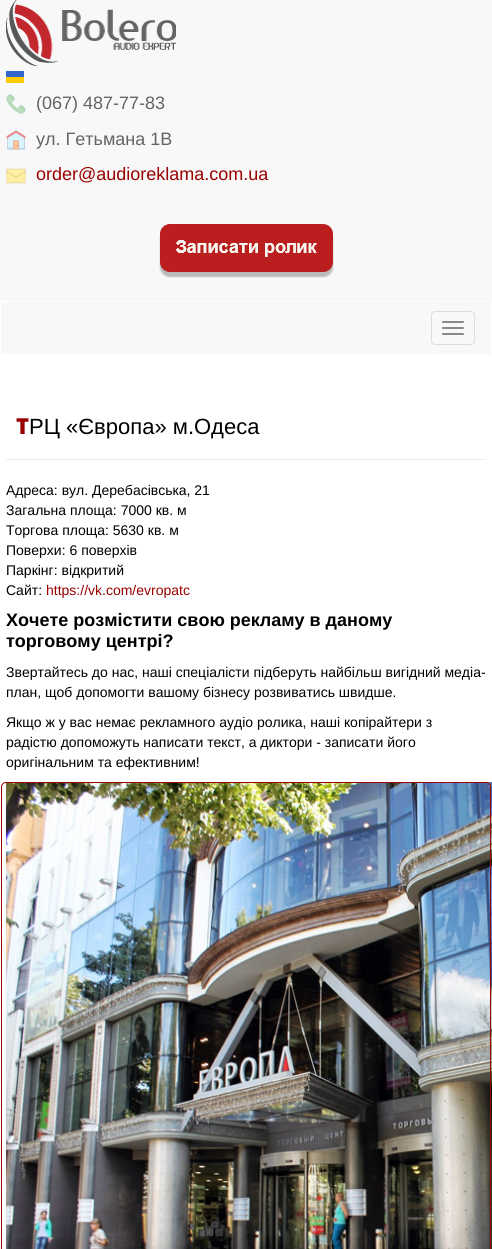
#include <cairo.h>
#include <math.h>
#include <stddef.h>

static cairo_t *c;
static void C(unsigned color){cairo_set_source_rgb(c, (color >> 16) / 255.0, (color >> 8 & 255) / 255.0, (color & 255) / 255.0);}
static void F(const char *family, double size, int italic, int bold){cairo_select_font_face(c, family, italic ? CAIRO_FONT_SLANT_ITALIC : CAIRO_FONT_SLANT_NORMAL,bold ? CAIRO_FONT_WEIGHT_BOLD : CAIRO_FONT_WEIGHT_NORMAL);cairo_set_font_size(c, size);}
static void T(double x, double y, const char *s){cairo_move_to(c, x, y);cairo_show_text(c, s);}
static void R(double x, double y, double w, double h){cairo_rectangle(c, x, y, w, h);cairo_fill(c);}
static void Q(double x, double y, double w, double h, double r){cairo_new_sub_path(c);cairo_arc(c, x + w - r, y + h - r, r, 0, M_PI / 2);cairo_arc(c, x + r, y + h - r, r, M_PI / 2, M_PI);cairo_arc(c, x + r, y + r, r, M_PI, 1.5 * M_PI);cairo_arc(c, x + w - r, y + r, r, 1.5 * M_PI, 2 * M_PI);cairo_close_path(c);}
static void I(const char *path, double x, double y, double w, double h){cairo_surface_t *image = cairo_image_surface_create_from_png(path);cairo_save(c);cairo_set_source_surface(c, image, x, y);cairo_rectangle(c, x, y, w, h);cairo_fill(c);cairo_restore(c);cairo_surface_destroy(image);}
int main(void) {
cairo_surface_t *surface = cairo_image_surface_create(CAIRO_FORMAT_RGB24, 492, 1249);
c = cairo_create(surface);
cairo_font_options_t *options = cairo_font_options_create();
cairo_font_options_set_hint_metrics(options, CAIRO_HINT_METRICS_OFF);
cairo_font_options_set_hint_style(options, CAIRO_HINT_STYLE_NONE);
cairo_set_font_options(c, options);
cairo_set_miter_limit(c, 4);
C(0xffffff);
cairo_paint(c);
C(0xf8f8f8);
R(0,0,492,301);
I("1.png",6,0,170,66);
I("2.png",6,71,18,12);
I("3.png",6,94,20,20);
F("Liberation Sans",18,0,0);
C(0x636466);
T(36,109,"(067) 487-77-83");
I("4.png",6,130,20,20);
T(36,145,"ул. Гетьмана 1В");
I("5.png",6,168,20,16);
C(0x990000);
T(36,180,"order@audioreklama.com.ua");
I("6.png",159,224,175,54);
C(0xf8f8f8);
R(1,302,490,52);
Q(431.5,311.5,43,33,3.5);
C(0xdddddd);
cairo_set_line_width(c,1);
cairo_stroke(c);
C(0x888888);
Q(442,321,22,2,1);
cairo_fill(c);
Q(442,327,22,2,1);
cairo_fill(c);
Q(442,333,22,2,1);
cairo_fill(c);
C(0xeeeeee);
R(6,459,480,1);
F("Noto Sans Black",22,0,0);
C(0x990000);
T(16,434,"Т");
F("Liberation Sans",22,0,0);
C(0x000000);
T(29,434,"РЦ «Європа» м.Одеса");
F("Liberation Sans",14,0,0);
T(6,495,"Адреса: вул. Деребасівська, 21");
T(6,515,"Загальна площа: 7000 кв. м");
T(6,535,"Торгова площа: 5630 кв. м");
T(6,555,"Поверхи: 6 поверхів");
T(6,575,"Паркінг: відкритий");
T(6,595,"Сайт:");
C(0x990000);
T(46,595,"https://vk.com/evropatc");
F("Liberation Sans",18,0,1);
C(0x000000);
T(6,626,"Хочете розмістити свою рекламу в даному");
T(6,647,"торговому центрі?");
F("Liberation Sans",14,0,0);
T(6,677,"Звертайтесь до нас, наші спеціалісти підберуть найбільш вигідний медіа-");
T(6,697,"план, щоб допомогти вашому бізнесу розвиватись швидше.");
T(6,727,"Якщо ж у вас немає рекламного аудіо ролика, наші копірайтери з");
T(6,747,"радістю допоможуть написати текст, а диктори - записати його");
T(6,767,"оригінальним та ефективним!");
I("7.png",6,782,486,467);
Q(1.5,782.5,489,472,4.5);
C(0x990000);
cairo_stroke(c);
cairo_surface_write_to_png(surface, "o.png");
cairo_font_options_destroy(options);
cairo_destroy(c);
cairo_surface_destroy(surface);
return 0;
}
